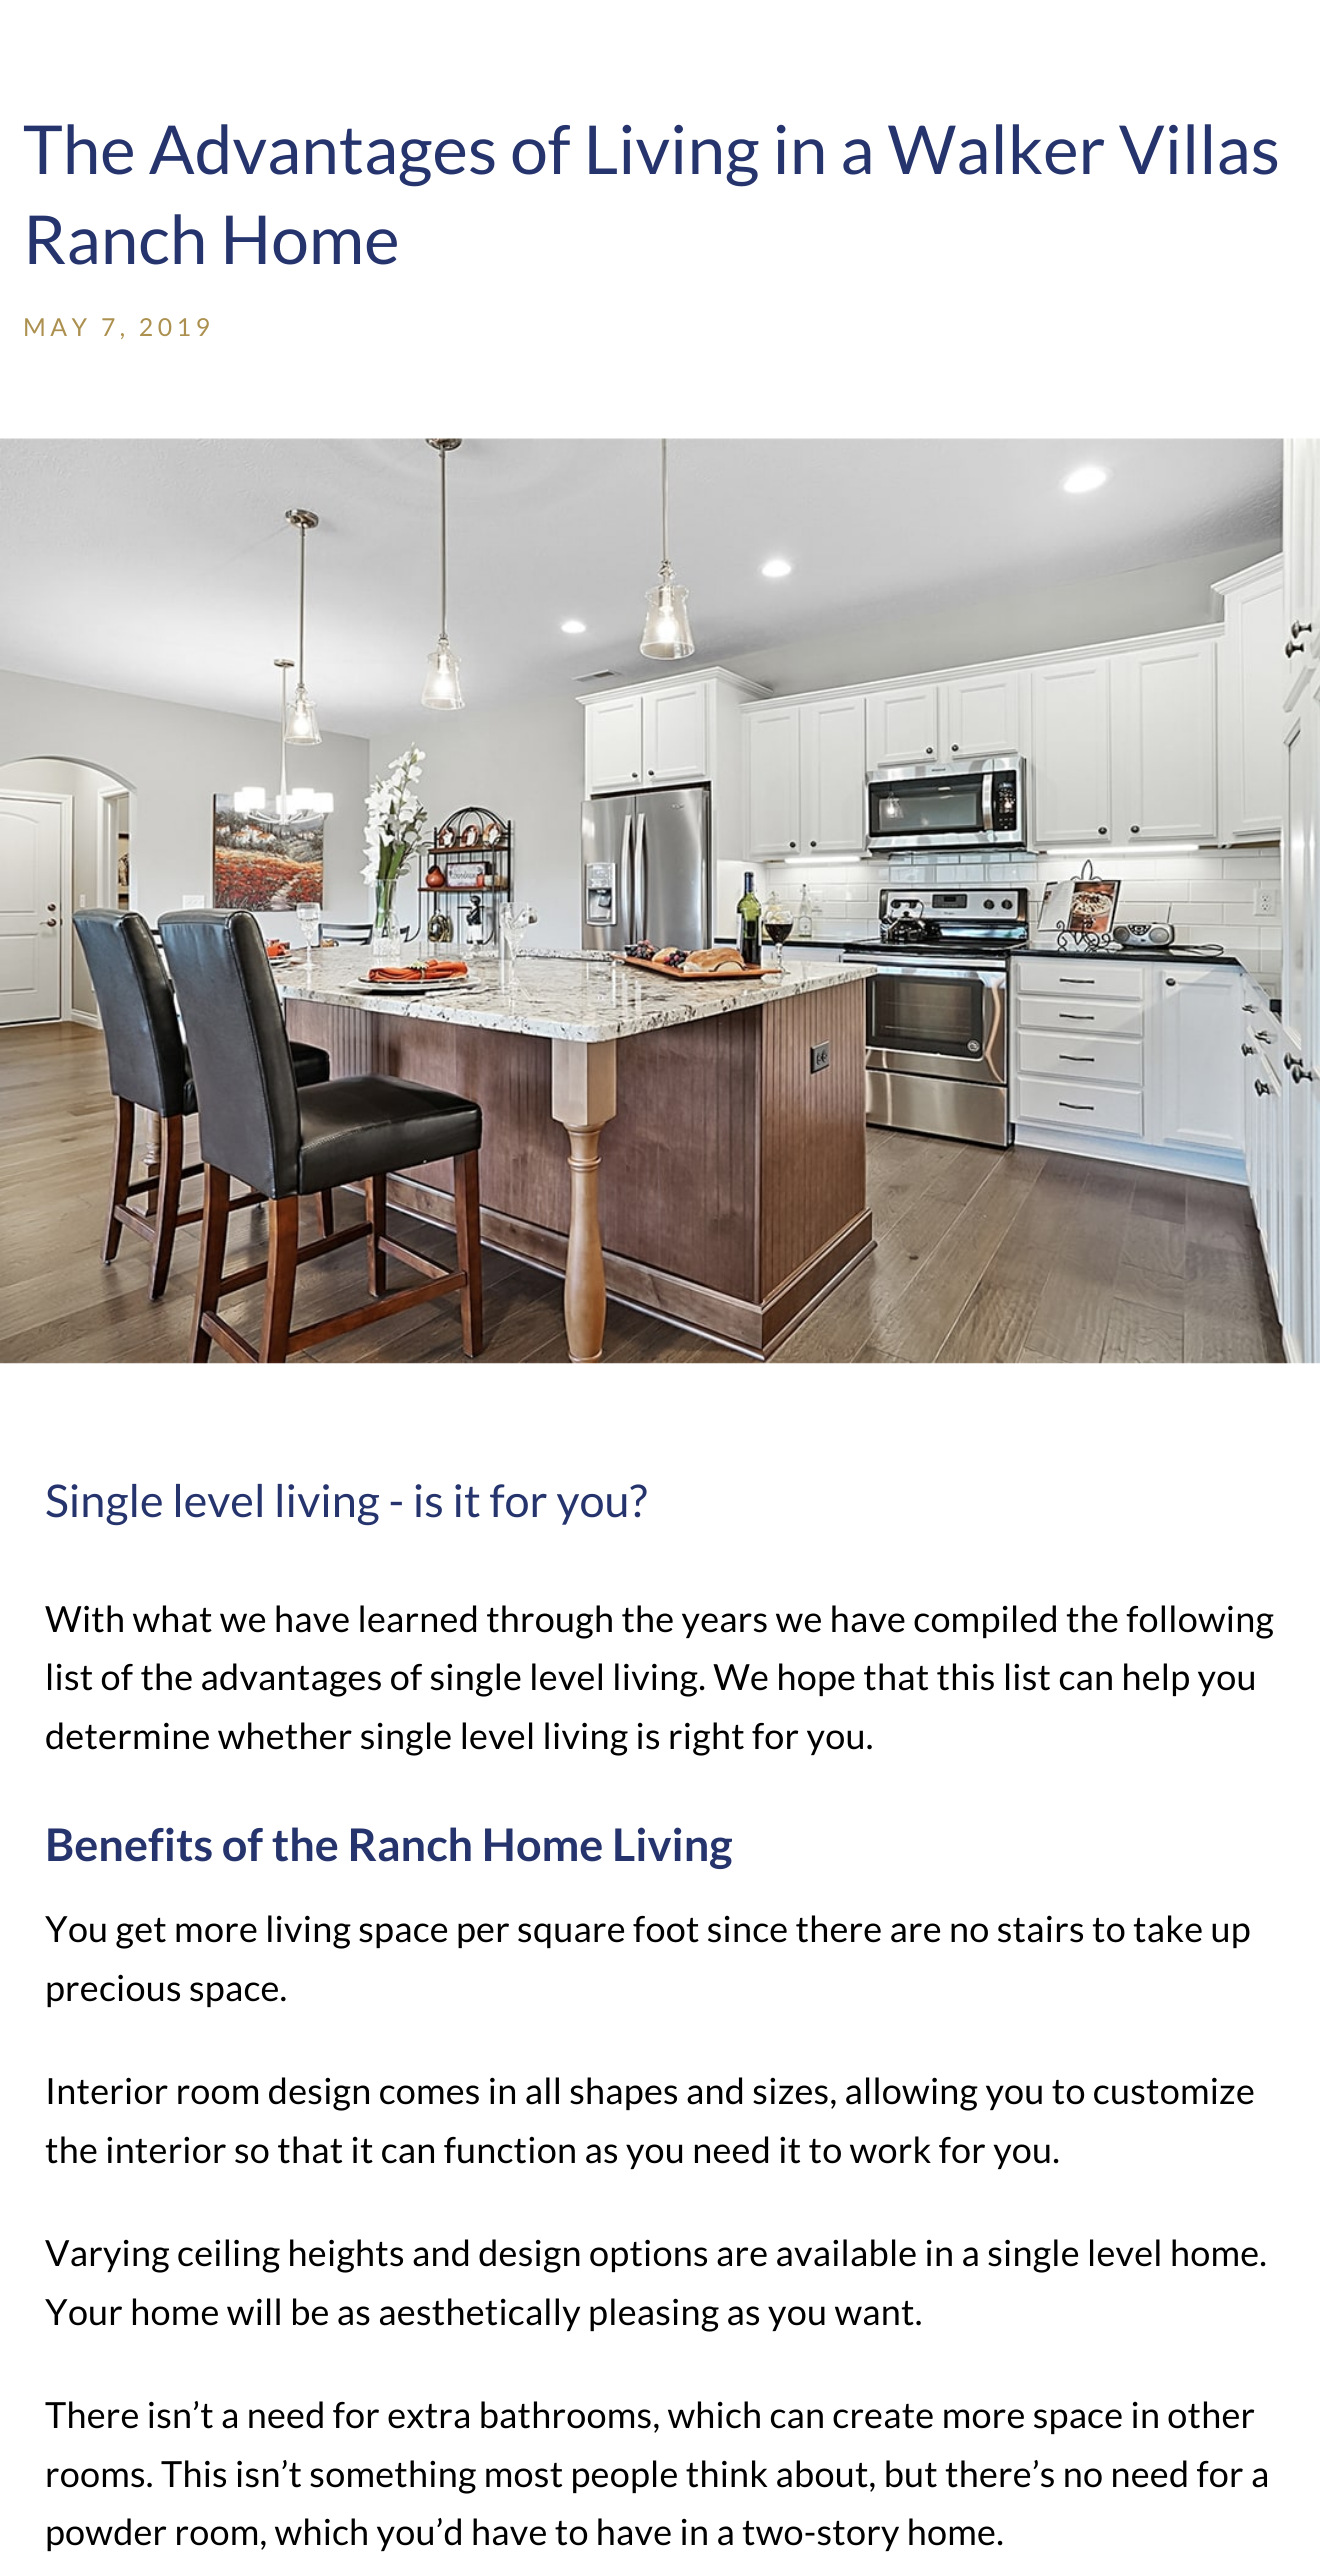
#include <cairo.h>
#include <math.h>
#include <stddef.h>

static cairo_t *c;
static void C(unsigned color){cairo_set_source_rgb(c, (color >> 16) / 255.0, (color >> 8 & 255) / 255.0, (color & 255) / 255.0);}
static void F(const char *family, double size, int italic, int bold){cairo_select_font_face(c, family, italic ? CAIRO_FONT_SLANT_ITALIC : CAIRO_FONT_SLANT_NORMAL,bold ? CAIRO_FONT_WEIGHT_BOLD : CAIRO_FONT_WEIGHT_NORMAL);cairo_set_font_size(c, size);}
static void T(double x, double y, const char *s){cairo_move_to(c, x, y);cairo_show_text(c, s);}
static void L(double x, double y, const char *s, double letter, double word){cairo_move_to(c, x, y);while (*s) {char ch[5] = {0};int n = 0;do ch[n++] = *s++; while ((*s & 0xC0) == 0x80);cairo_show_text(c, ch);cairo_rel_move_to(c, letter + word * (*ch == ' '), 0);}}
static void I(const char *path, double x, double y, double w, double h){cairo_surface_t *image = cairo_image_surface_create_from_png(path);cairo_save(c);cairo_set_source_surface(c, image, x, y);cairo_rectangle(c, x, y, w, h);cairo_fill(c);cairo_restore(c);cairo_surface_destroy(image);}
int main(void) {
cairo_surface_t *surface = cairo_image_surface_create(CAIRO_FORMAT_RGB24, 1320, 2559);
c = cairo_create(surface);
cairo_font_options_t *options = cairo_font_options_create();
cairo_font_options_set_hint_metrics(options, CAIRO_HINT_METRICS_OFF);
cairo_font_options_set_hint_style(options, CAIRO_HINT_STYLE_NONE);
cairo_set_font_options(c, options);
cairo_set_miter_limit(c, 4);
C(0xffffff);
cairo_paint(c);
F("Lato",67.5,0,0);
C(0x26346d);
T(23,174,"The Advantages of Living in a Walker Villas");
T(23,264,"Ranch Home");
F("Lato",24.75,0,0);
C(0xac904f);
L(23,336,"MAY 7, 2019",4.5,0);
I("1.png",0,438,1320,926);
F("Lato",45,0,0);
C(0x26346d);
T(45,1517,"Single level living - is it for you?");
F("Lato",36,0,0);
C(0x000000);
L(45,1632,"With what we have learned through the years we have compiled the following",.23,0);
L(45,1690,"list of the advantages of single level living. We hope that this list can help you",.23,0);
L(45,1749,"determine whether single level living is right for you.",.23,0);
F("Lato",45,0,1);
C(0x26346d);
T(45,1861,"Benefits of the Ranch Home Living");
F("Lato",36,0,0);
C(0x000000);
L(45,1942,"You get more living space per square foot since there are no stairs to take up",.23,0);
L(45,2001,"precious space.",.23,0);
L(45,2104,"Interior room design comes in all shapes and sizes, allowing you to customize",.23,0);
L(45,2163,"the interior so that it can function as you need it to work for you.",.23,0);
L(45,2266,"Varying ceiling heights and design options are available in a single level home.",.23,0);
L(45,2325,"Your home will be as aesthetically pleasing as you want.",.23,0);
L(45,2428,"There isn’t a need for extra bathrooms, which can create more space in other",.23,0);
L(45,2487,"rooms. This isn’t something most people think about, but there’s no need for a",.23,0);
L(45,2545,"powder room, which you’d have to have in a two-story home.",.23,0);
cairo_surface_write_to_png(surface, "o.png");
cairo_font_options_destroy(options);
cairo_destroy(c);
cairo_surface_destroy(surface);
return 0;
}
